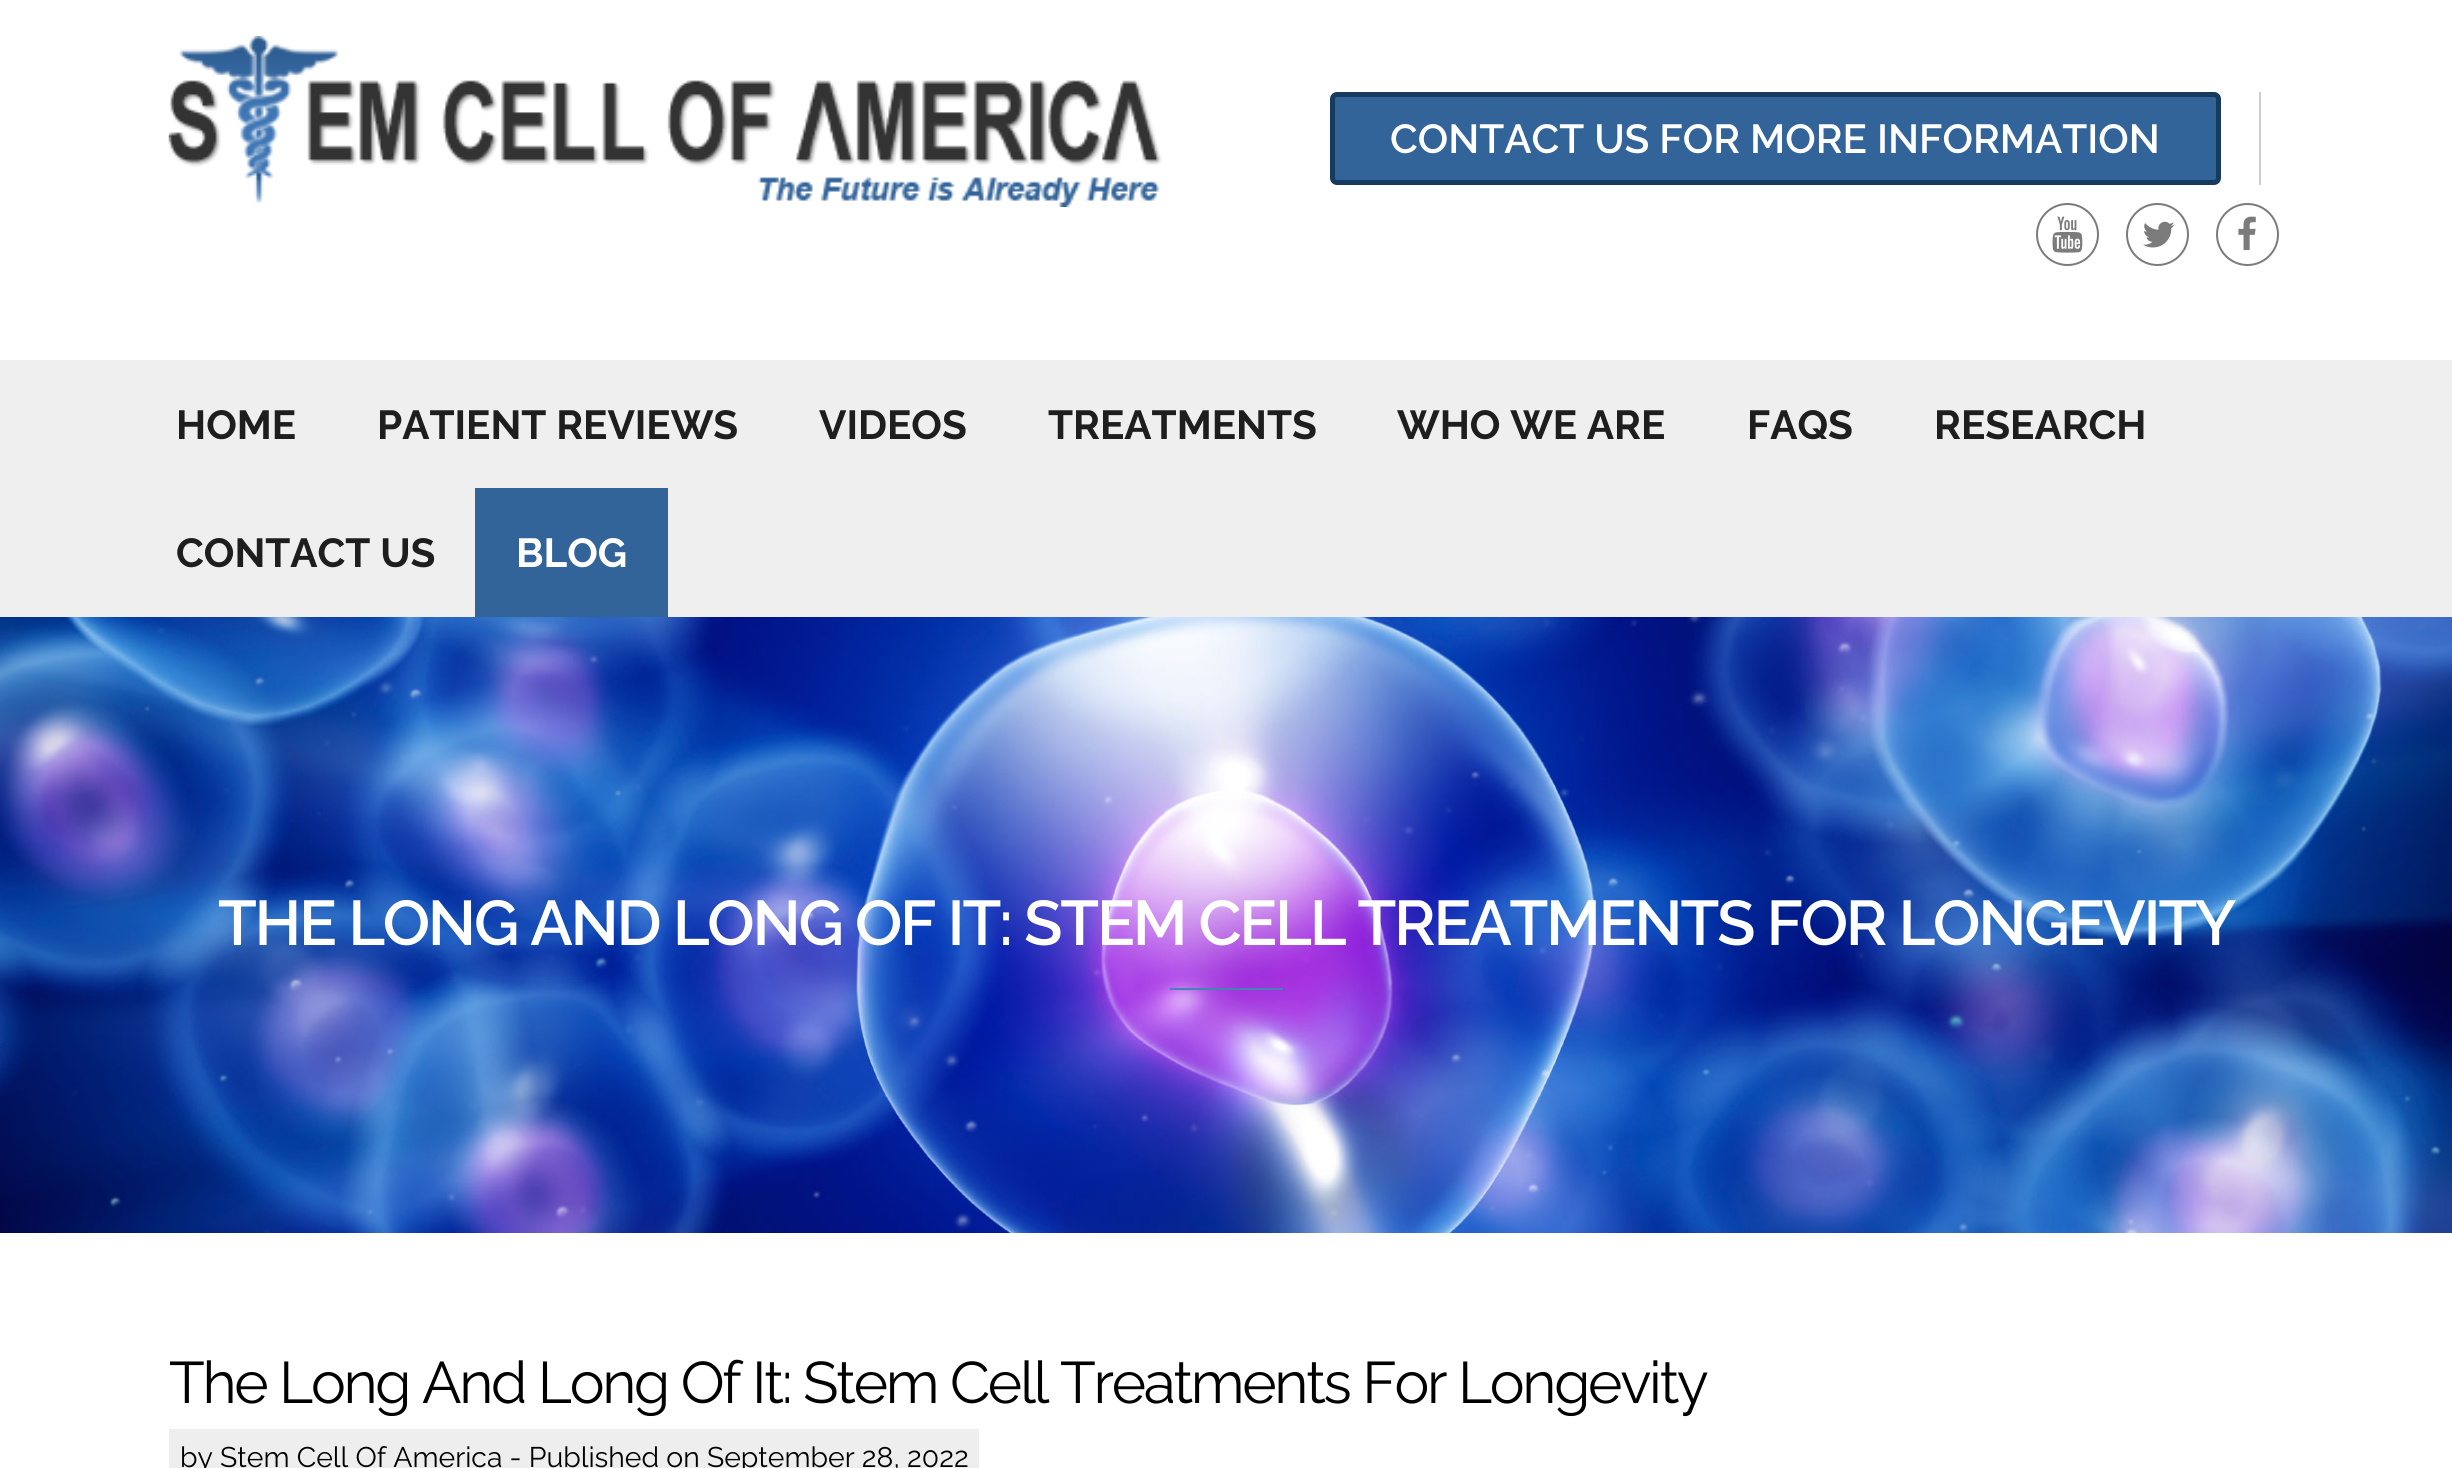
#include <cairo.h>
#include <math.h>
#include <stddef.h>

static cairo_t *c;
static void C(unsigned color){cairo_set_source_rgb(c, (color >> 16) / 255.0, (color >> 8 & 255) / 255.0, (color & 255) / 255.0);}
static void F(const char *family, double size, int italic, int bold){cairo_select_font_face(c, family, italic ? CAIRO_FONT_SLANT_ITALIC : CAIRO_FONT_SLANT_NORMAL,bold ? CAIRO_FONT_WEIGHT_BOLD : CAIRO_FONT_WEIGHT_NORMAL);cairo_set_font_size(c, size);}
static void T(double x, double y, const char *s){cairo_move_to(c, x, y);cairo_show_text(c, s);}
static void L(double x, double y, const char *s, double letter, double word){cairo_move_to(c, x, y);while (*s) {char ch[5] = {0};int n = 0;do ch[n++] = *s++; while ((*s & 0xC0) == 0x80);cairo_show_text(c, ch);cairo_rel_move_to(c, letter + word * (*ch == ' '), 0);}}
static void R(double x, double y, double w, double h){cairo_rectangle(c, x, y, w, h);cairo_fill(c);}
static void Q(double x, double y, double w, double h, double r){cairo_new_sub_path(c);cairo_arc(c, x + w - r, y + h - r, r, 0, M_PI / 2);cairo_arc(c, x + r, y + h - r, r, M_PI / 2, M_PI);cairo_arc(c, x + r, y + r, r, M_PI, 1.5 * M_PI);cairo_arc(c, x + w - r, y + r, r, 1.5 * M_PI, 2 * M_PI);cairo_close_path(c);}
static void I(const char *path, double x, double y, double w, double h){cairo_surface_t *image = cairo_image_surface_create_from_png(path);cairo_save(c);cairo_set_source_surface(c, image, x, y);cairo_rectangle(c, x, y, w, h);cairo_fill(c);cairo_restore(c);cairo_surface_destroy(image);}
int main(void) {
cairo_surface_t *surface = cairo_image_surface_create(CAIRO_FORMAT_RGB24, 2452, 1468);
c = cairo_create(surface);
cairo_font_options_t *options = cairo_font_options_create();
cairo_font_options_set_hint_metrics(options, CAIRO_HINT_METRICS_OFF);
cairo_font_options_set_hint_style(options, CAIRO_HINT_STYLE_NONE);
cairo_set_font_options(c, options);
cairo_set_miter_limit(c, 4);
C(0xffffff);
cairo_paint(c);
I("1.png",168,36,994,171);
C(0xcccccc);
R(2259,92,2,93);
C(0x326399);
Q(1332.5,94.5,886,88,4.5);
cairo_fill_preserve(c);
C(0x173a5f);
cairo_set_line_width(c,5);
cairo_stroke(c);
F("Raleway SemiBold",40.5,0,0);
C(0xffffff);
T(1390,153,"CONTACT US FOR MORE INFORMATION");
cairo_new_path(c);
cairo_arc(c,2067.5,234.5,30.5,0,2 * M_PI);
C(0x7b7b7b);
cairo_set_line_width(c,2);
cairo_stroke(c);
I("2.png",2052,216,31,37);
cairo_arc(c,2157.5,234.5,30.5,0,2 * M_PI);
cairo_stroke(c);
I("3.png",2143,221,32,27);
cairo_arc(c,2247.5,234.5,30.5,0,2 * M_PI);
cairo_stroke(c);
I("4.png",2238,216,18,35);
C(0xefefef);
R(0,360,2452,257);
F("Raleway",40.5,0,1);
C(0x1e1e1e);
T(176,439,"HOME");
T(377,439,"PATIENT REVIEWS");
T(819,439,"VIDEOS");
T(1048,439,"TREATMENTS");
T(1397,439,"WHO WE ARE");
T(1747,439,"FAQS");
T(1934,439,"RESEARCH");
T(176,567,"CONTACT US");
C(0x326399);
R(475,488,193,129);
C(0xffffff);
T(516,567,"BLOG");
I("5.png",0,617,2452,616);
F("Raleway SemiBold",63,0,0);
L(218,945,"THE LONG AND LONG OF IT: STEM CELL TREATMENTS FOR LONGEVITY",-2.25,0);
C(0x4682b4);
R(1170,988,113,2);
F("Raleway",58.5,0,0);
C(0x000000);
L(169,1403,"The Long And Long Of It: Stem Cell Treatments For Longevity",-2.25,0);
C(0xeeeeee);
R(169,1429,810,39);
F("Raleway",28.35,0,0);
C(0x000000);
T(180,1467,"by Stem Cell Of America - Published on September 28, 2022");
cairo_surface_write_to_png(surface, "o.png");
cairo_font_options_destroy(options);
cairo_destroy(c);
cairo_surface_destroy(surface);
return 0;
}
